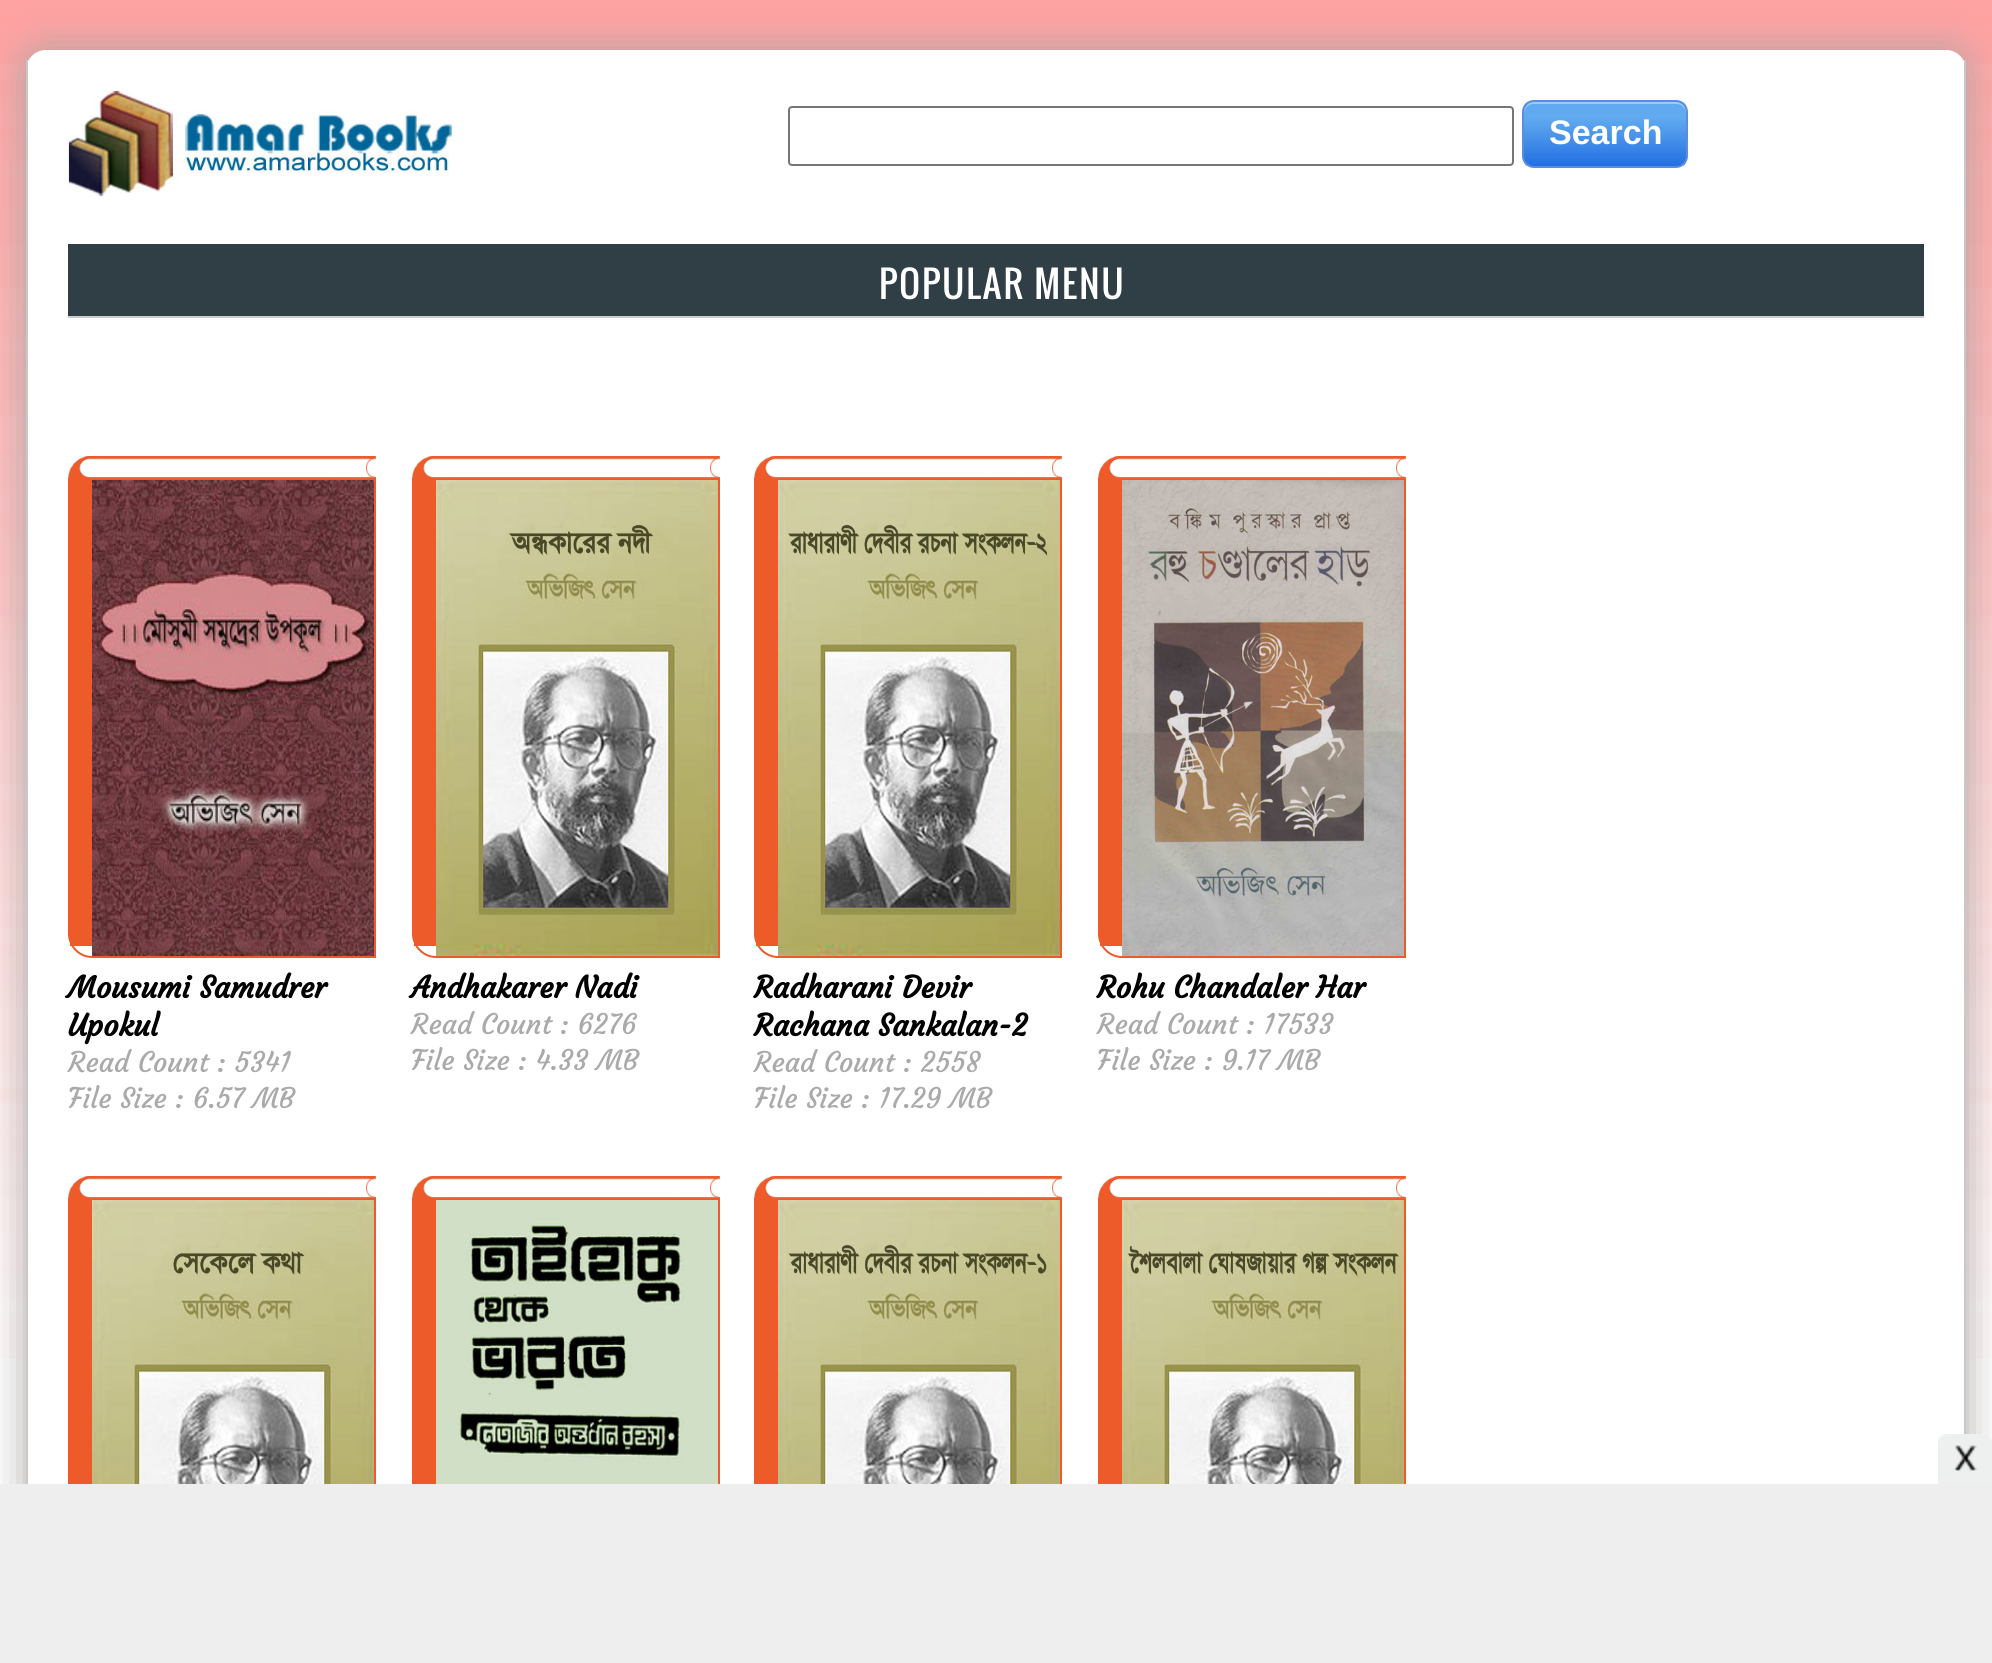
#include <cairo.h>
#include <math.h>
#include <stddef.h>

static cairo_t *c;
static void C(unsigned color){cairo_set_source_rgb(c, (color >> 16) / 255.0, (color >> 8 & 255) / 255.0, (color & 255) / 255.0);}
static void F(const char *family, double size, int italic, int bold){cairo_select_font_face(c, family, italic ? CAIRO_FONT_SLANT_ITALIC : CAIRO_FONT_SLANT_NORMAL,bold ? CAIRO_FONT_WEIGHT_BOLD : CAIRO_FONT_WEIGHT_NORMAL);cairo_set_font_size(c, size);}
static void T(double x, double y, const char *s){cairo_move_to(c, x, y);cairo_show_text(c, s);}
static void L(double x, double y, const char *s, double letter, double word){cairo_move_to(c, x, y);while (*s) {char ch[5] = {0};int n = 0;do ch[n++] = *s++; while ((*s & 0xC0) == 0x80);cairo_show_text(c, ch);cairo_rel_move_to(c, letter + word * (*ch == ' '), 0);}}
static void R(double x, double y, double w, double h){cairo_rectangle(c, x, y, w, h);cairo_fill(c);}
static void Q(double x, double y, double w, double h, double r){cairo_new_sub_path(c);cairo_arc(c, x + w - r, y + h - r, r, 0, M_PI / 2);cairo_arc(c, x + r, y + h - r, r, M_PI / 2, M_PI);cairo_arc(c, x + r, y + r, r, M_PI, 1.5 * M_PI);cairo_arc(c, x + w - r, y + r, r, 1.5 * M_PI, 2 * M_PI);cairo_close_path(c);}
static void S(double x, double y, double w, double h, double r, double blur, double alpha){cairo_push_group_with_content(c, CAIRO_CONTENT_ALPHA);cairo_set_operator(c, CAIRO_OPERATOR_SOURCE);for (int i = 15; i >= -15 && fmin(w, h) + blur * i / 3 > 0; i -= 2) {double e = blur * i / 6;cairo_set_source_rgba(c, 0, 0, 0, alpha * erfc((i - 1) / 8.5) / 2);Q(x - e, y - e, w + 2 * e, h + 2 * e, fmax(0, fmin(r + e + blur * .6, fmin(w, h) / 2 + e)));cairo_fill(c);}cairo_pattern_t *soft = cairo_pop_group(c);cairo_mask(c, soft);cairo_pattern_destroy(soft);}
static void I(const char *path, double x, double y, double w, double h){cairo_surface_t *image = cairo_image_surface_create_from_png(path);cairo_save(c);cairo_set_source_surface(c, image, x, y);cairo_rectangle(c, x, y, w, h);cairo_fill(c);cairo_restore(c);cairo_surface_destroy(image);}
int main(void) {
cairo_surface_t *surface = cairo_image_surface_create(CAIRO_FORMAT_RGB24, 1992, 1663);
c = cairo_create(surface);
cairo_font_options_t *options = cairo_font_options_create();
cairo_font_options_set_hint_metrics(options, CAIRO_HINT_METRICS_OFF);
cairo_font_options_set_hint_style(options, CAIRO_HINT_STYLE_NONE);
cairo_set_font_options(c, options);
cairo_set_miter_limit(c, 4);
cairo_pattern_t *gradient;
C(0xffffff);
cairo_paint(c);
I("1.png",0,0,1992,1359);
C(0xada5a5);
S(26,50,1940,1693,20,20,1);
C(0xffffff);
cairo_new_path(c);
cairo_move_to(c,46,50);
cairo_line_to(c,1946,50);
cairo_curve_to(c,1957,50,1966,59,1966,70);
cairo_line_to(c,1966,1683);
cairo_line_to(c,26,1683);
cairo_line_to(c,26,70);
cairo_curve_to(c,26,59,35,50,46,50);
cairo_close_path(c);
cairo_fill(c);
C(0xc8c8c8);
R(1964,60,2,1374);
R(26,60,2,1424);
I("2.png",68,90,388,109);
Q(789,107,724,58,3);
C(0x767676);
cairo_stroke(c);
cairo_save(c);
Q(1522,100,166,68,12);
cairo_clip(c);
gradient = cairo_pattern_create_linear(1605,102,1605,166);
cairo_pattern_add_color_stop_rgba(gradient,0,0.38,0.667,0.937,1);
cairo_pattern_add_color_stop_rgba(gradient,.25,0.38,0.667,0.937,1);
cairo_pattern_add_color_stop_rgba(gradient,1,0.137,0.435,0.886,1);
cairo_set_source(c,gradient);
cairo_pattern_destroy(gradient);
R(1524,102,162,64);
cairo_restore(c);
C(0x9acdf9);
cairo_new_path(c);
cairo_move_to(c,1534,104);
cairo_line_to(c,1676,104);
cairo_curve_to(c,1682,104,1686,108,1686,114);
cairo_line_to(c,1686,112);
cairo_curve_to(c,1686,106,1682,102,1676,102);
cairo_line_to(c,1534,102);
cairo_curve_to(c,1528,102,1524,106,1524,112);
cairo_line_to(c,1524,114);
cairo_curve_to(c,1524,108,1528,104,1534,104);
cairo_close_path(c);
cairo_fill(c);
Q(1523,101,164,66,11);
C(0x5a8ddf);
cairo_stroke(c);
F("Liberation Sans",34,0,1);
C(0xffffff);
T(1549,144,"Search");
C(0x303e45);
R(68,244,1856,72);
C(0xcccccc);
R(68,316,1856,2);
F("Oswald",36,0,0);
C(0xffffff);
L(879,299,"POPULAR MENU",2,0);
I("3.png",68,456,308,22);
cairo_new_path(c);
cairo_move_to(c,69,479);
cairo_line_to(c,375,479);
cairo_line_to(c,375,957);
cairo_line_to(c,92,957);
cairo_curve_to(c,79.5,957,69,946.5,69,934);
cairo_close_path(c);
C(0xee5b2b);
cairo_stroke(c);
R(70,480,22,466);
I("4.png",92,480,282,476);
F("Courgette",30,0,1);
C(0x000000);
T(68,998,"Mousumi Samudrer");
T(68,1036,"Upokul");
F("Courgette",28,0,0);
C(0xaaaaaa);
T(68,1072,"Read Count : 5341");
T(68,1108,"File Size : 6.57 MB");
I("3.png",412,456,308,22);
cairo_new_path(c);
cairo_move_to(c,413,479);
cairo_line_to(c,719,479);
cairo_line_to(c,719,957);
cairo_line_to(c,436,957);
cairo_curve_to(c,423.5,957,413,946.5,413,934);
cairo_close_path(c);
C(0xee5b2b);
cairo_stroke(c);
R(414,480,22,466);
I("5.png",436,480,282,476);
F("Courgette",30,0,1);
C(0x000000);
T(411,998,"Andhakarer Nadi");
F("Courgette",28,0,0);
C(0xaaaaaa);
T(411,1034,"Read Count : 6276");
T(411,1070,"File Size : 4.33 MB");
I("3.png",754,456,308,22);
cairo_new_path(c);
cairo_move_to(c,755,479);
cairo_line_to(c,1061,479);
cairo_line_to(c,1061,957);
cairo_line_to(c,778,957);
cairo_curve_to(c,765.5,957,755,946.5,755,934);
cairo_close_path(c);
C(0xee5b2b);
cairo_stroke(c);
R(756,480,22,466);
I("6.png",778,480,282,476);
F("Courgette",30,0,1);
C(0x000000);
T(754,998,"Radharani Devir");
T(754,1036,"Rachana Sankalan-2");
F("Courgette",28,0,0);
C(0xaaaaaa);
T(754,1072,"Read Count : 2558");
T(754,1108,"File Size : 17.29 MB");
I("3.png",1098,456,308,22);
cairo_new_path(c);
cairo_move_to(c,1099,479);
cairo_line_to(c,1405,479);
cairo_line_to(c,1405,957);
cairo_line_to(c,1122,957);
cairo_curve_to(c,1109.5,957,1099,946.5,1099,934);
cairo_close_path(c);
C(0xee5b2b);
cairo_stroke(c);
R(1100,480,22,466);
I("7.png",1122,480,282,476);
F("Courgette",30,0,1);
C(0x000000);
T(1097,998,"Rohu Chandaler Har");
F("Courgette",28,0,0);
C(0xaaaaaa);
T(1097,1034,"Read Count : 17533");
T(1097,1070,"File Size : 9.17 MB");
I("3.png",68,1176,308,22);
cairo_rectangle(c,69,1199,306,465);
C(0xee5b2b);
cairo_stroke(c);
R(70,1200,22,284);
I("8.png",92,1200,282,284);
I("3.png",412,1176,308,22);
cairo_rectangle(c,413,1199,306,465);
cairo_stroke(c);
R(414,1200,22,284);
I("9.png",436,1200,282,284);
I("3.png",754,1176,308,22);
cairo_rectangle(c,755,1199,306,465);
cairo_stroke(c);
R(756,1200,22,284);
I("10.png",778,1200,282,284);
I("3.png",1098,1176,308,22);
cairo_rectangle(c,1099,1199,306,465);
cairo_stroke(c);
R(1100,1200,22,284);
I("11.png",1122,1200,282,284);
I("12.png",1938,1434,54,50);
C(0xeeeeee);
R(0,1484,1992,179);
cairo_surface_write_to_png(surface, "o.png");
cairo_font_options_destroy(options);
cairo_destroy(c);
cairo_surface_destroy(surface);
return 0;
}
